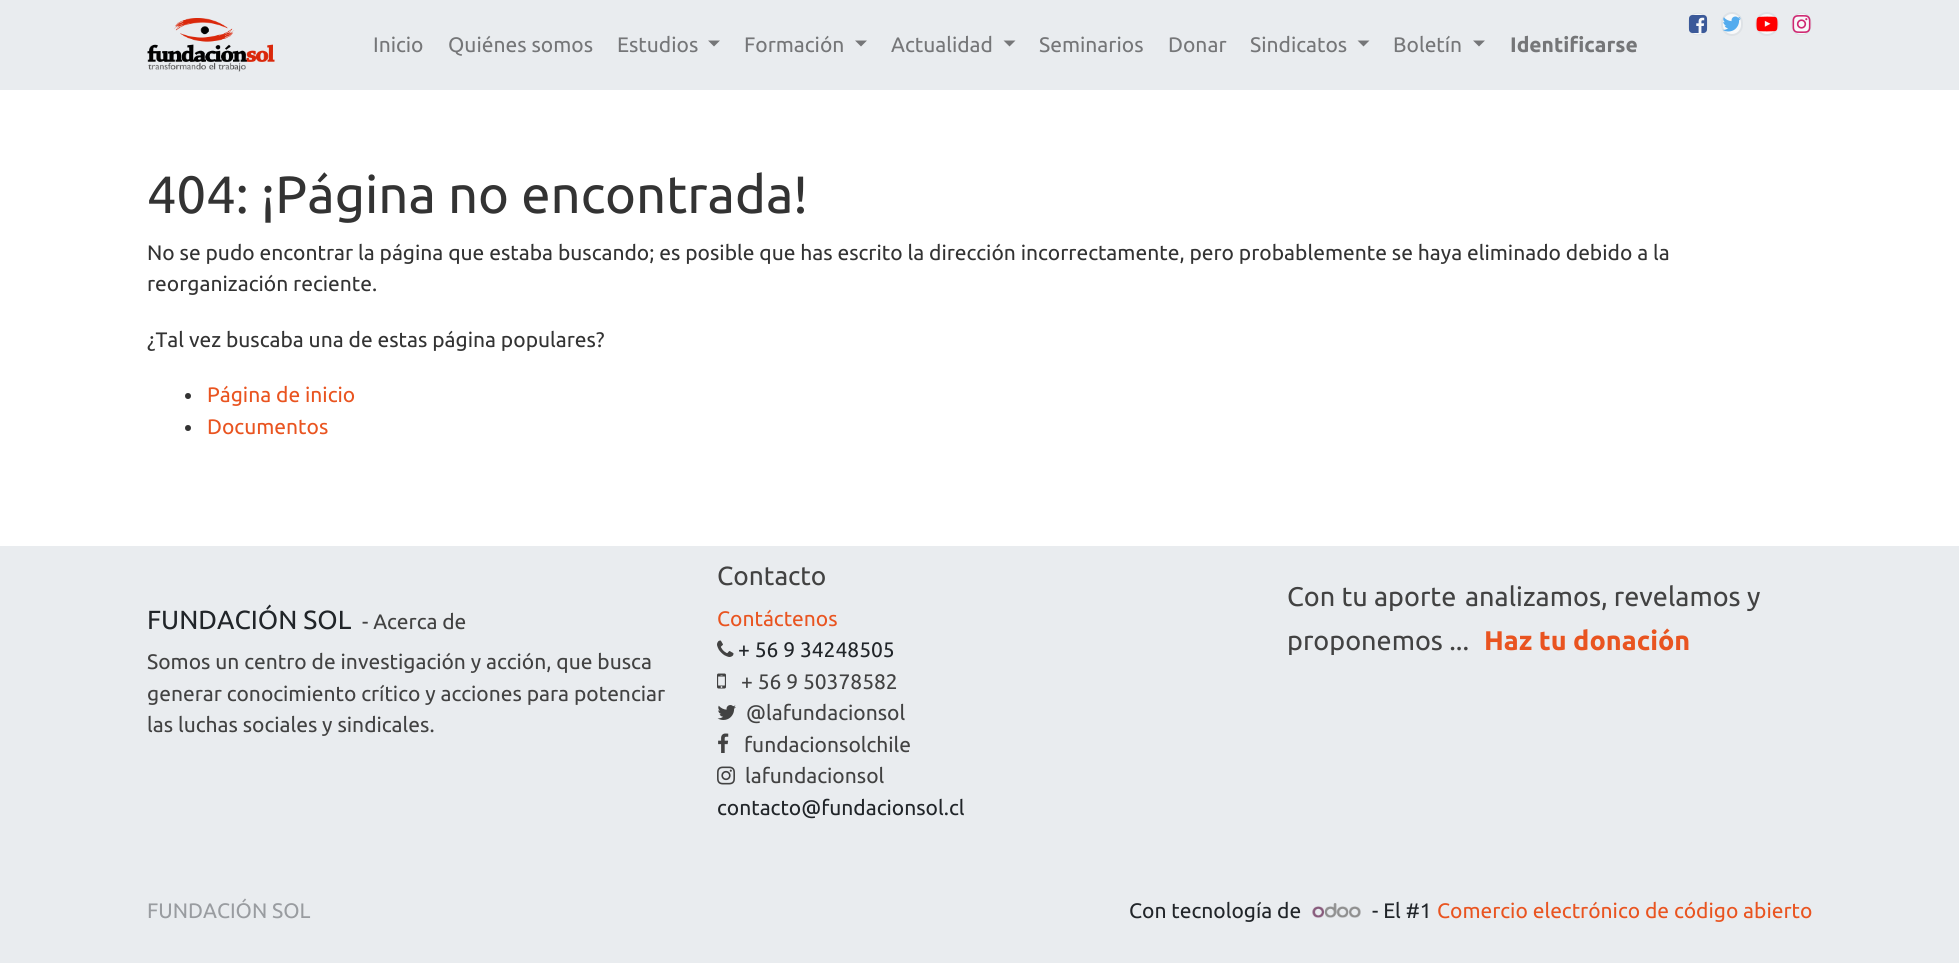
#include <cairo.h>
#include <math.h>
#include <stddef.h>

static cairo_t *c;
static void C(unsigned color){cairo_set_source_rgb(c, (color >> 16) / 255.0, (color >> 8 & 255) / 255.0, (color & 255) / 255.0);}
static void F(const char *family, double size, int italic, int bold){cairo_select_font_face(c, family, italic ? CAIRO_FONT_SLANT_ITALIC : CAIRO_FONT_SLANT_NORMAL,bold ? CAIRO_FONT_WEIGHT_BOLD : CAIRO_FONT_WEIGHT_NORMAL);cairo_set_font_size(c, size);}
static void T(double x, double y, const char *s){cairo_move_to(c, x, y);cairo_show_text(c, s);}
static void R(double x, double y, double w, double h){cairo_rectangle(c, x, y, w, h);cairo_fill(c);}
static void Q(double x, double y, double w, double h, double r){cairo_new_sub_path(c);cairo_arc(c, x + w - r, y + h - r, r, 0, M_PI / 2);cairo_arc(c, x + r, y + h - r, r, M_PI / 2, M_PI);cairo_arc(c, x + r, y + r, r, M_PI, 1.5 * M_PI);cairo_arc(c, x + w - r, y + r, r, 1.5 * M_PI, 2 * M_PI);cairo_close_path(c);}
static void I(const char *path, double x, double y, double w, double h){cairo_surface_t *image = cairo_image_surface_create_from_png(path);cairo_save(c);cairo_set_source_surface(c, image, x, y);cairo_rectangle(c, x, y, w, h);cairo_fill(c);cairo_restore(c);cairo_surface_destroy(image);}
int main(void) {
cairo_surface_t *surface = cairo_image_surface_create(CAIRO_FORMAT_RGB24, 1959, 963);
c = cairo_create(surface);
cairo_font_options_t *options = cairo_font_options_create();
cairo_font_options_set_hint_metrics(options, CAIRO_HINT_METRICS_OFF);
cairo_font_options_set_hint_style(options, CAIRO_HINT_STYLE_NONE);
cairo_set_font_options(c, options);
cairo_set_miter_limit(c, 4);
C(0xffffff);
cairo_paint(c);
C(0xe9ecef);
R(0,0,1959,90);
I("1.png",147,18,128,54);
F("Ubuntu",21,0,0);
C(0x757678);
T(373,52,"Inicio");
T(448,52,"Quiénes somos");
T(617,52,"Estudios");
cairo_new_path(c);
cairo_move_to(c,708,40.5);
cairo_line_to(c,720,40.5);
cairo_line_to(c,714,46.5);
cairo_close_path(c);
cairo_fill(c);
T(744,52,"Formación");
cairo_new_path(c);
cairo_move_to(c,855,40.5);
cairo_line_to(c,867,40.5);
cairo_line_to(c,861,46.5);
cairo_close_path(c);
cairo_fill(c);
T(891,52,"Actualidad");
cairo_new_path(c);
cairo_move_to(c,1003.5,40.5);
cairo_line_to(c,1015.5,40.5);
cairo_line_to(c,1009.5,46.5);
cairo_close_path(c);
cairo_fill(c);
T(1039,52,"Seminarios");
T(1168,52,"Donar");
T(1250,52,"Sindicatos");
cairo_new_path(c);
cairo_move_to(c,1357.5,40.5);
cairo_line_to(c,1369.5,40.5);
cairo_line_to(c,1363.5,46.5);
cairo_close_path(c);
cairo_fill(c);
T(1393,52,"Boletín");
cairo_new_path(c);
cairo_move_to(c,1473,40.5);
cairo_line_to(c,1485,40.5);
cairo_line_to(c,1479,46.5);
cairo_close_path(c);
cairo_fill(c);
F("Ubuntu",21,0,1);
T(1510,52,"Identificarse");
C(0xf8f9fa);
cairo_new_path(c);
cairo_move_to(c,1698,12);
cairo_curve_to(c,1704,12,1708.5,17.5,1708.5,24);
cairo_curve_to(c,1708.5,30.5,1704,36,1698,36);
cairo_curve_to(c,1692,36,1687.5,30.5,1687.5,24);
cairo_curve_to(c,1687.5,17.5,1692,12,1698,12);
cairo_close_path(c);
cairo_fill(c);
cairo_new_path(c);
cairo_move_to(c,1698,13);
cairo_curve_to(c,1711,13,1711,35,1698,35);
cairo_curve_to(c,1685,35.5,1685,13,1698,13);
cairo_close_path(c);
C(0xdee2e6);
cairo_set_line_width(c,1.5);
cairo_stroke(c);
I("2.png",1689,15,18,18);
C(0xf8f9fa);
Q(1722,13,20,22,10);
cairo_fill_preserve(c);
C(0xdee2e6);
cairo_set_line_width(c,2);
cairo_stroke(c);
I("3.png",1722,16,19,16);
C(0xf8f9fa);
cairo_arc(c,1767,24,11,0,2 * M_PI);
cairo_fill_preserve(c);
C(0xdee2e6);
cairo_stroke(c);
I("4.png",1756,16,22,16);
C(0xf8f9fa);
cairo_new_path(c);
cairo_move_to(c,1801.5,12);
cairo_curve_to(c,1807.5,12,1812,17.5,1812,24);
cairo_curve_to(c,1812,30.5,1807.5,36,1801.5,36);
cairo_curve_to(c,1795.5,36,1791,30.5,1791,24);
cairo_curve_to(c,1791,17.5,1795.5,12,1801.5,12);
cairo_close_path(c);
cairo_fill(c);
cairo_new_path(c);
cairo_move_to(c,1801.5,13);
cairo_curve_to(c,1814.5,13,1814.5,35,1801.5,35);
cairo_curve_to(c,1788.5,35.5,1788.5,13,1801.5,13);
cairo_close_path(c);
C(0xdee2e6);
cairo_set_line_width(c,1.5);
cairo_stroke(c);
I("5.png",1792,15,19,18);
F("Ubuntu",52.5,0,0);
C(0x333333);
T(147,213,"404: ¡Página no encontrada!");
F("Ubuntu",21,0,0);
T(147,260,"No se pudo encontrar la página que estaba buscando; es posible que has escrito la dirección incorrectamente, pero probablemente se haya eliminado debido a la");
T(147,291,"reorganización reciente.");
T(147,347,"¿Tal vez buscaba una de estas página populares?");
cairo_new_path(c);
cairo_arc(c,188,396,3,0,2 * M_PI);
cairo_fill(c);
C(0xe95420);
T(207,402,"Página de inicio");
C(0x333333);
cairo_new_path(c);
cairo_arc(c,188,428,3,0,2 * M_PI);
cairo_fill(c);
C(0xe95420);
T(207,434,"Documentos");
C(0xe9ecef);
R(0,546,1959,417);
F("Ubuntu",26.25,0,0);
C(0x212529);
T(147,629,"FUNDACIÓN SOL");
F("Ubuntu",21,0,0);
C(0x424242);
T(362,629,"- Acerca de");
T(147,669,"Somos un centro de investigación y acción, que busca");
T(147,701,"generar conocimiento crítico y acciones para potenciar");
T(147,732,"las luchas sociales y sindicales.");
F("Ubuntu",26.25,0,0);
T(717,585,"Contacto");
F("Ubuntu",21,0,0);
C(0xe95420);
T(717,626,"Contáctenos");
I("6.png",717,640,17,17);
C(0x212529);
T(738,657,"+ 56 9 34248505");
I("7.png",717,673,9,16);
C(0x424242);
T(741,689,"+ 56 9 50378582");
I("8.png",717,705,19,15);
T(746,720,"@lafundacionsol");
I("9.png",718,733,11,20);
T(744,752,"fundacionsolchile");
I("10.png",717,766,18,19);
T(745,783,"lafundacionsol");
C(0x212529);
T(717,815,"contacto@fundacionsol.cl");
F("Ubuntu",27,0,0);
C(0x424242);
T(1287,606,"Con tu aporte");
T(1465,606,"analizamos, revelamos y");
T(1287,650,"proponemos ...");
F("Ubuntu",27,0,1);
C(0xe95420);
T(1484,650,"Haz tu donación");
F("Ubuntu",21,0,0);
C(0x999ca0);
T(147,918,"FUNDACIÓN SOL");
C(0x212529);
T(1129,918,"Con tecnología de");
I("11.png",1312,903,49,15);
T(1372,918,"- El #1");
C(0xe95420);
T(1437,918,"Comercio electrónico de código abierto");
cairo_surface_write_to_png(surface, "o.png");
cairo_font_options_destroy(options);
cairo_destroy(c);
cairo_surface_destroy(surface);
return 0;
}
